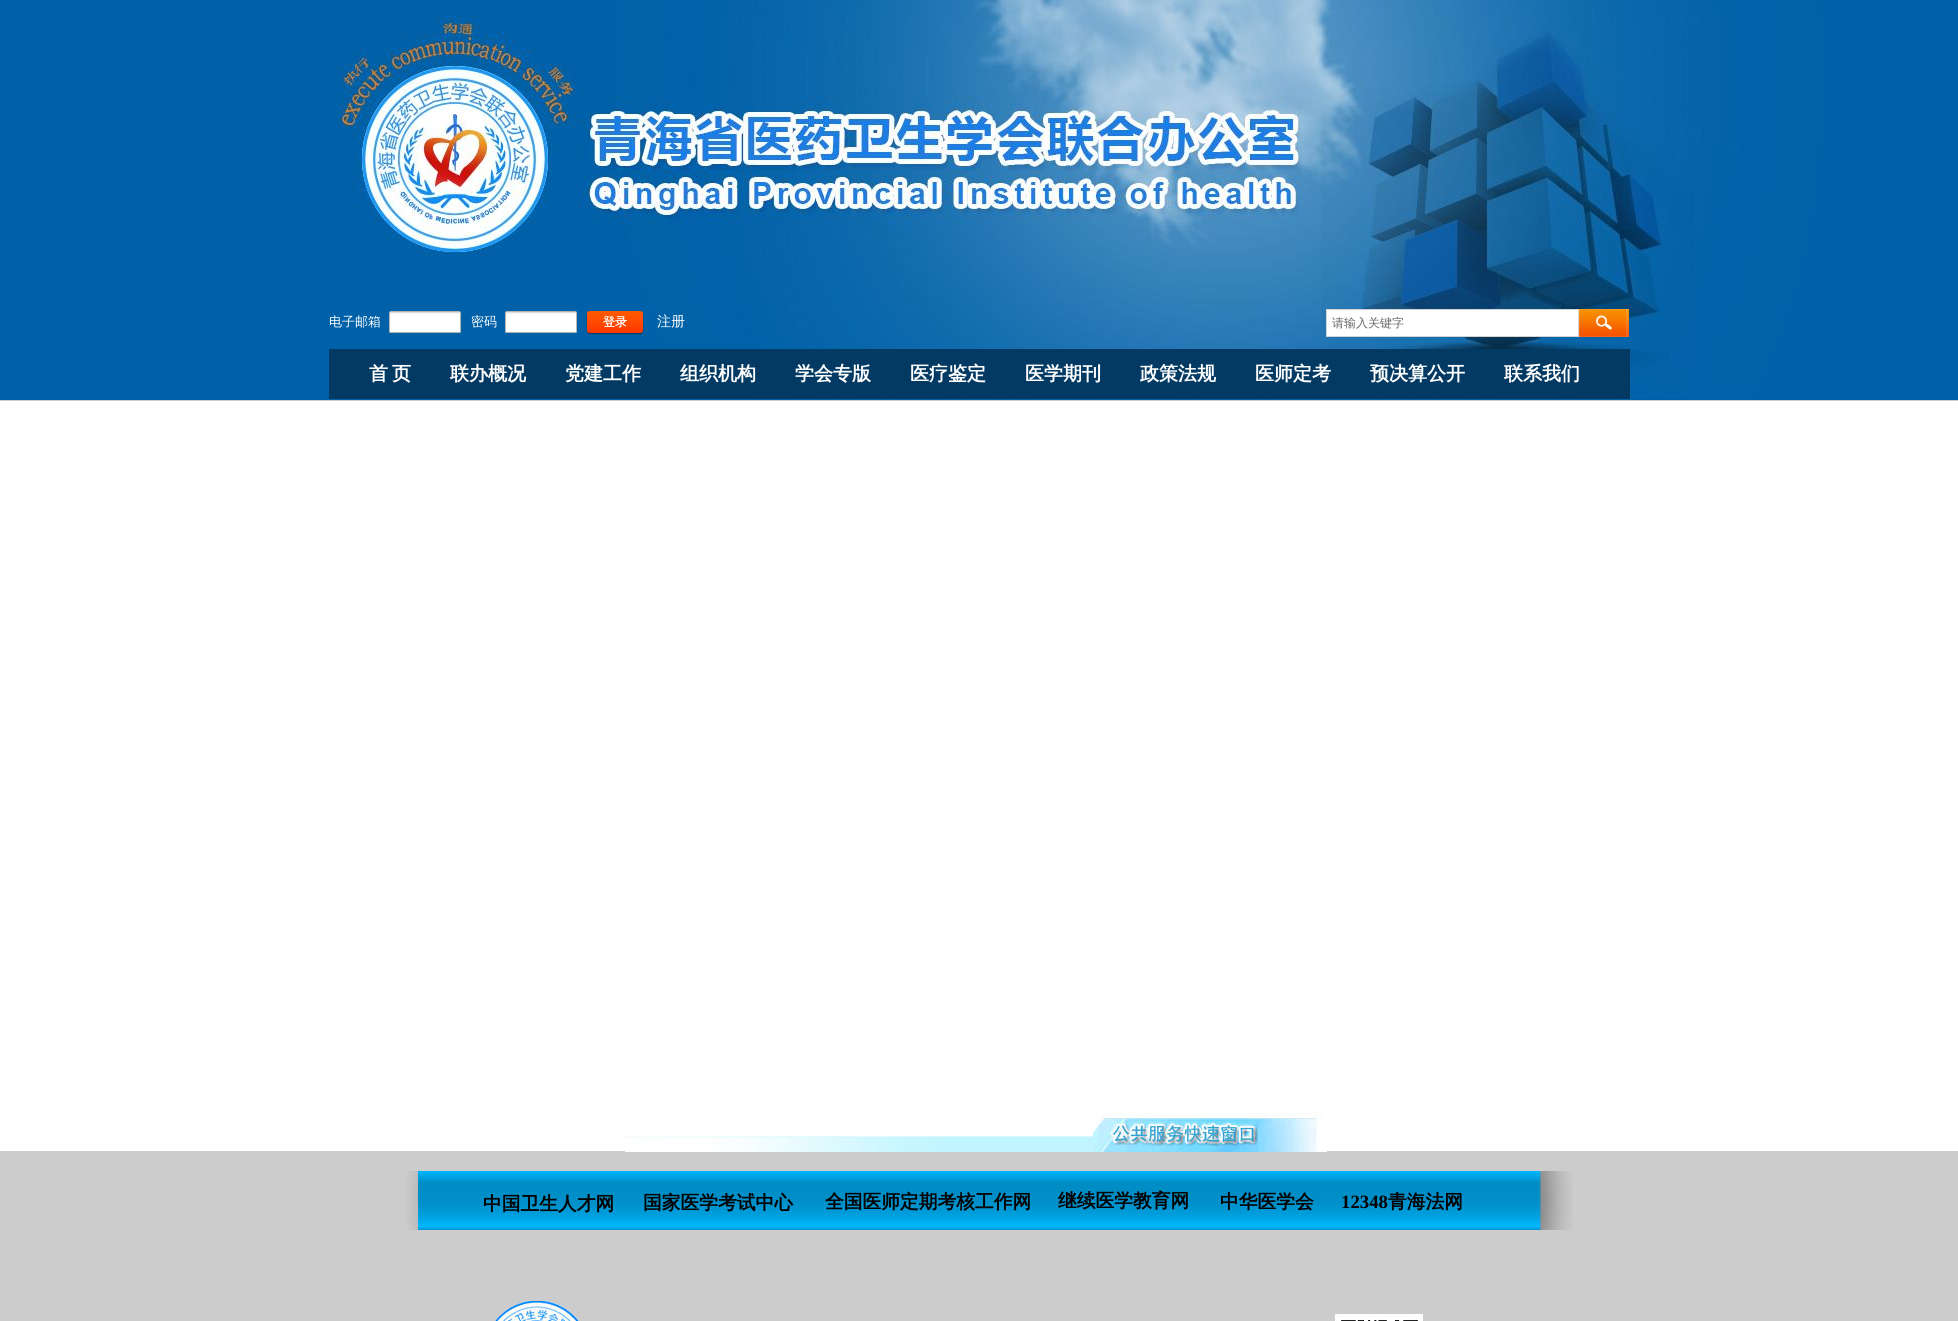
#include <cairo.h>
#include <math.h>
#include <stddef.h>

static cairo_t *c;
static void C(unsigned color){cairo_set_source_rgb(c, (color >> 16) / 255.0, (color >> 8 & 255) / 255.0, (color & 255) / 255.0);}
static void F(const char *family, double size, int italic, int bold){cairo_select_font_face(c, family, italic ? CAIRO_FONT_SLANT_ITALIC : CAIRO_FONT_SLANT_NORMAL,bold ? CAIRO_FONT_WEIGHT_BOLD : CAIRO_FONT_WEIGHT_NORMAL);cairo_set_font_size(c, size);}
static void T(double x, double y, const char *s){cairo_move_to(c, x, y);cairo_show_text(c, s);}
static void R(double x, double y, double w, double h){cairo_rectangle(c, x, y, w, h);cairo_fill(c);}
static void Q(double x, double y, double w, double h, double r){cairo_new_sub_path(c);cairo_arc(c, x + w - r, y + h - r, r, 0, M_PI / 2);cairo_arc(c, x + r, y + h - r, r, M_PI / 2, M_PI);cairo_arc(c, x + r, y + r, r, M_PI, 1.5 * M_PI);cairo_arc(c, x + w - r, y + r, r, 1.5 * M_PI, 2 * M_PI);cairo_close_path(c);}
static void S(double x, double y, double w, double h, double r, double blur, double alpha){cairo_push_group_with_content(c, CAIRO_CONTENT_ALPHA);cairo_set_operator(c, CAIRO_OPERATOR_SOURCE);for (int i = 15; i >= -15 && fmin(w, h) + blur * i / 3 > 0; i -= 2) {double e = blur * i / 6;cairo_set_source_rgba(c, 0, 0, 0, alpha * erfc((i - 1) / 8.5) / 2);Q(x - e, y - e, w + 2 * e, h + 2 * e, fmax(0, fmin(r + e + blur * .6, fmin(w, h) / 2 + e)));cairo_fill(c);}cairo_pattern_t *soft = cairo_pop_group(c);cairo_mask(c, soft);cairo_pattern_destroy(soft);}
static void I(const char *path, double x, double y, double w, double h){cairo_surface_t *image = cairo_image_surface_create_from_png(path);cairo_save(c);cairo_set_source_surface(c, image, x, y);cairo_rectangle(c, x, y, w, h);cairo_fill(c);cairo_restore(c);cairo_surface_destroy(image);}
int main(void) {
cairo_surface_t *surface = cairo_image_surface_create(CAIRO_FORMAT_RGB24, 1958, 1321);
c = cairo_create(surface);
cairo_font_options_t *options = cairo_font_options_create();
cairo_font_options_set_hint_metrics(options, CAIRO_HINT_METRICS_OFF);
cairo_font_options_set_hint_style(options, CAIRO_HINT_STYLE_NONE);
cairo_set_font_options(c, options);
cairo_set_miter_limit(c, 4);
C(0xffffff);
cairo_paint(c);
C(0xcccccc);
R(0,400,1958,1);
I("1.png",0,0,1958,400);
F("WenQuanYi Zen Hei Medium",13,0,0);
C(0xffffff);
T(329,326,"电子邮箱");
I("2.png",389,312,72,21);
Q(389.5,311.5,71,21,1.5);
C(0xb5b5b5);
cairo_set_line_width(c,1);
cairo_stroke(c);
C(0xffffff);
T(471,326,"密码");
I("2.png",505,312,72,21);
Q(505.5,311.5,71,21,1.5);
C(0xb5b5b5);
cairo_stroke(c);
C(0x000000);
S(587,312,56,22,3,.5,.4);
I("3.png",587,311,56,22);
F("WenQuanYi Zen Hei",12,0,1);
C(0xffffff);
T(603,326,"登录");
F("WenQuanYi Zen Hei Medium",14,0,0);
T(657,326,"注册");
cairo_rectangle(c,1326.5,309.5,252,27);
cairo_fill_preserve(c);
C(0xd3d3d3);
cairo_stroke(c);
F("WenQuanYi Zen Hei Medium",12,0,0);
C(0x666666);
T(1332,327,"请输入关键字");
I("4.png",1579,309,50,28);
C(0x033a63);
R(329,349,1301,50);
F("WenQuanYi Zen Hei",19,0,1);
C(0xffffff);
T(369,380,"首");
T(392,380,"页");
T(450,380,"联办概况");
T(565,380,"党建工作");
T(680,380,"组织机构");
T(795,380,"学会专版");
T(910,380,"医疗鉴定");
T(1025,380,"医学期刊");
T(1140,380,"政策法规");
T(1255,380,"医师定考");
T(1370,380,"预决算公开");
T(1504,380,"联系我们");
C(0xcccccc);
R(0,1151,1958,170);
I("6.png",1091,1112,236,40);
I("5.png",625,1128,468,24);
I("7.png",407,1171,1165,59);
F("WenQuanYi Zen Hei",18.75,0,1);
C(0x000000);
T(483,1210,"中国卫生人才网");
T(643,1209,"国家医学考试中心");
T(825,1208,"全国医师定期考核工作网");
T(1058,1207,"继续医学教育网");
T(1220,1208,"中华医学会");
F("Liberation Serif",18.75,0,1);
T(1341,1208,"12348");
F("WenQuanYi Zen Hei",18.75,0,1);
T(1388,1208,"青海法网");
I("8.png",495,1301,84,20);
I("9.png",1335,1314,88,7);
cairo_surface_write_to_png(surface, "o.png");
cairo_font_options_destroy(options);
cairo_destroy(c);
cairo_surface_destroy(surface);
return 0;
}
